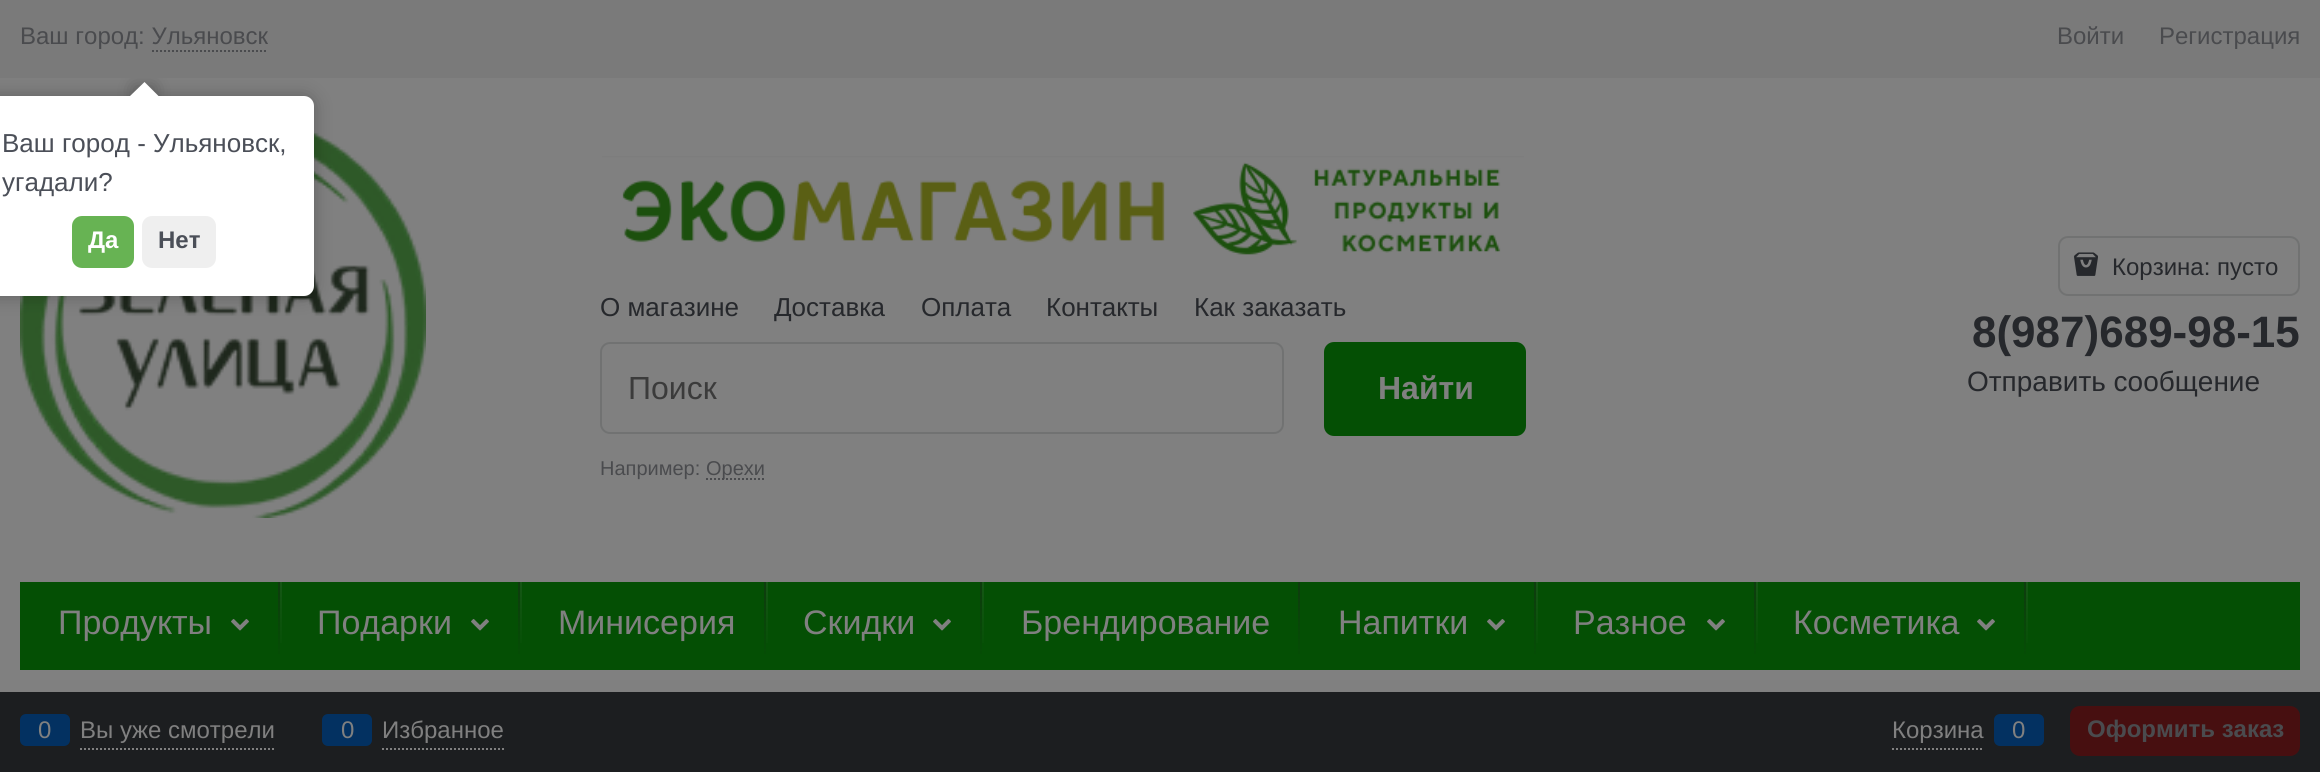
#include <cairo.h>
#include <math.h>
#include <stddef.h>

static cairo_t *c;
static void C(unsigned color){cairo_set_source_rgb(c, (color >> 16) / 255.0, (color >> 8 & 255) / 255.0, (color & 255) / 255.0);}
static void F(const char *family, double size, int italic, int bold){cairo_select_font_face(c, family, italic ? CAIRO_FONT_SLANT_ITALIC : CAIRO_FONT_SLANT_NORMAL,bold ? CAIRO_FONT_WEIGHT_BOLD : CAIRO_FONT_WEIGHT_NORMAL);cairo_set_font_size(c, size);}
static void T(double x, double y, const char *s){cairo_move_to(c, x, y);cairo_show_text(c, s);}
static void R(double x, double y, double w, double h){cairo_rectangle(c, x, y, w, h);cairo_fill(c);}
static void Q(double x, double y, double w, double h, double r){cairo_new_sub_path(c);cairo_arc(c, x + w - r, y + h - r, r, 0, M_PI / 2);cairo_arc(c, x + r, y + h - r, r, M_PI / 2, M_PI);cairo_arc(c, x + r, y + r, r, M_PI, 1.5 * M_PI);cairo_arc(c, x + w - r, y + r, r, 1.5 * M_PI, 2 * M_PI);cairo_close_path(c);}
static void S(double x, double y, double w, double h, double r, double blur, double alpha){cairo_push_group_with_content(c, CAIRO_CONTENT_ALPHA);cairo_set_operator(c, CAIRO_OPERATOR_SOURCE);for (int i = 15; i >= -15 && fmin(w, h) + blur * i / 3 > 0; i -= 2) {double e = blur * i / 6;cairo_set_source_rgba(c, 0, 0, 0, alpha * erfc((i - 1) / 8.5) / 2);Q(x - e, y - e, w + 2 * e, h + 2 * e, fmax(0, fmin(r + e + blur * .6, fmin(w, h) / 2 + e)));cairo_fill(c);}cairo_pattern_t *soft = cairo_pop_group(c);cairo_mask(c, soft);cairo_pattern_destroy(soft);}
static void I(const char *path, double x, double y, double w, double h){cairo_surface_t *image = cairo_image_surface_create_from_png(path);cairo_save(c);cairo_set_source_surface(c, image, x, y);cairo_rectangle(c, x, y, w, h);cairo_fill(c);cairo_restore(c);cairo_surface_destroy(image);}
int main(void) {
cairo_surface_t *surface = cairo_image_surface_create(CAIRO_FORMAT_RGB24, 2320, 772);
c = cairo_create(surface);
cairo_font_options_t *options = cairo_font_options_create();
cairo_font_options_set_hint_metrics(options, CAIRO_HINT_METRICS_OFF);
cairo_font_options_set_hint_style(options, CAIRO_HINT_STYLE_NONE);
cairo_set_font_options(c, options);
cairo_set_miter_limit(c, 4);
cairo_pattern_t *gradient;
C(0x808080);
cairo_paint(c);
C(0x7a7a7a);
R(0,0,2320,78);
F("Liberation Sans",24,0,0);
C(0x4a4b4e);
T(20,44,"Ваш город: Ульяновск");
cairo_new_path(c);
cairo_move_to(c,152,51);
cairo_line_to(c,268,51);
cairo_set_dash(c,(double[]){2,2},2,0);
cairo_stroke(c);
T(2057,44,"Войти");
T(2159,44,"Регистрация");
I("1.png",20,131,406,387);
I("2.png",602,156,922,99);
F("Liberation Sans",26,0,0);
C(0x26282c);
T(600,316,"О магазине");
T(774,316,"Доставка");
T(921,316,"Оплата");
T(1046,316,"Контакты");
T(1194,316,"Как заказать");
Q(601,343,682,90,9);
C(0x717272);
cairo_set_dash(c,NULL,0,0);
cairo_stroke(c);
F("Liberation Sans",32,0,0);
C(0x3b3b3b);
T(628,399,"Поиск");
F("Liberation Sans",20,0,0);
C(0x4a4b4e);
T(600,475,"Например:");
cairo_new_path(c);
cairo_move_to(c,706,479);
cairo_line_to(c,764,479);
cairo_set_dash(c,(double[]){2,2},2,0);
cairo_stroke(c);
T(706,475,"Орехи");
C(0x044f04);
Q(1324,342,202,94,10);
cairo_fill(c);
F("Liberation Sans",32,0,1);
C(0x808080);
T(1378,399,"Найти");
Q(2059,237,240,58,9);
C(0x717272);
cairo_set_dash(c,NULL,0,0);
cairo_stroke(c);
I("3.png",2074,252,24,24);
F("Liberation Sans",24,0,0);
C(0x26282c);
T(2112,275,"Корзина: пусто");
F("Liberation Sans",44,0,1);
T(1972,347,"8(987)689-98-15");
F("Liberation Sans",28,0,0);
T(1967,391,"Отправить сообщение");
C(0x044f04);
R(20,582,2280,88);
F("Liberation Sans",34,0,0);
C(0x808080);
T(58,634,"Продукты");
I("4.png",231,619,18,12);
gradient = cairo_pattern_create_linear(281,582,281,670);
cairo_pattern_add_color_stop_rgba(gradient,0,0.082,0.337,0.082,1);
cairo_pattern_add_color_stop_rgba(gradient,.72,0.024,0.314,0.024,1);
cairo_pattern_add_color_stop_rgba(gradient,1,0.016,0.31,0.016,1);
cairo_set_source(c,gradient);
cairo_pattern_destroy(gradient);
R(280,582,2,61);
gradient = cairo_pattern_create_linear(279,582,279,670);
cairo_pattern_add_color_stop_rgba(gradient,0,0.055,0.235,0.055,1);
cairo_pattern_add_color_stop_rgba(gradient,.17,0.047,0.247,0.047,1);
cairo_pattern_add_color_stop_rgba(gradient,.61,0.027,0.286,0.027,1);
cairo_pattern_add_color_stop_rgba(gradient,.96,0.016,0.31,0.016,1);
cairo_pattern_add_color_stop_rgba(gradient,.98,0.02,0.314,0.02,1);
cairo_pattern_add_color_stop_rgba(gradient,1,0.016,0.31,0.016,1);
cairo_set_source(c,gradient);
cairo_pattern_destroy(gradient);
R(278,582,2,72);
C(0x808080);
T(317,634,"Подарки");
I("4.png",471,619,18,12);
gradient = cairo_pattern_create_linear(521,582,521,670);
cairo_pattern_add_color_stop_rgba(gradient,0,0.082,0.337,0.082,1);
cairo_pattern_add_color_stop_rgba(gradient,.72,0.024,0.314,0.024,1);
cairo_pattern_add_color_stop_rgba(gradient,1,0.016,0.31,0.016,1);
cairo_set_source(c,gradient);
cairo_pattern_destroy(gradient);
R(520,582,2,61);
gradient = cairo_pattern_create_linear(519,582,519,670);
cairo_pattern_add_color_stop_rgba(gradient,0,0.055,0.235,0.055,1);
cairo_pattern_add_color_stop_rgba(gradient,.17,0.047,0.247,0.047,1);
cairo_pattern_add_color_stop_rgba(gradient,.61,0.027,0.286,0.027,1);
cairo_pattern_add_color_stop_rgba(gradient,.96,0.016,0.31,0.016,1);
cairo_pattern_add_color_stop_rgba(gradient,.98,0.02,0.314,0.02,1);
cairo_pattern_add_color_stop_rgba(gradient,1,0.016,0.31,0.016,1);
cairo_set_source(c,gradient);
cairo_pattern_destroy(gradient);
R(518,582,2,72);
C(0x808080);
T(558,634,"Минисерия");
gradient = cairo_pattern_create_linear(767,582,767,670);
cairo_pattern_add_color_stop_rgba(gradient,0,0.082,0.337,0.082,1);
cairo_pattern_add_color_stop_rgba(gradient,.72,0.024,0.314,0.024,1);
cairo_pattern_add_color_stop_rgba(gradient,1,0.016,0.31,0.016,1);
cairo_set_source(c,gradient);
cairo_pattern_destroy(gradient);
R(766,582,2,61);
gradient = cairo_pattern_create_linear(765,582,765,670);
cairo_pattern_add_color_stop_rgba(gradient,0,0.055,0.235,0.055,1);
cairo_pattern_add_color_stop_rgba(gradient,.17,0.047,0.247,0.047,1);
cairo_pattern_add_color_stop_rgba(gradient,.61,0.027,0.286,0.027,1);
cairo_pattern_add_color_stop_rgba(gradient,.96,0.016,0.31,0.016,1);
cairo_pattern_add_color_stop_rgba(gradient,.98,0.02,0.314,0.02,1);
cairo_pattern_add_color_stop_rgba(gradient,1,0.016,0.31,0.016,1);
cairo_set_source(c,gradient);
cairo_pattern_destroy(gradient);
R(764,582,2,72);
C(0x808080);
T(803,634,"Скидки");
I("4.png",933,619,18,12);
gradient = cairo_pattern_create_linear(983,582,983,670);
cairo_pattern_add_color_stop_rgba(gradient,0,0.082,0.337,0.082,1);
cairo_pattern_add_color_stop_rgba(gradient,.72,0.024,0.314,0.024,1);
cairo_pattern_add_color_stop_rgba(gradient,1,0.016,0.31,0.016,1);
cairo_set_source(c,gradient);
cairo_pattern_destroy(gradient);
R(982,582,2,61);
gradient = cairo_pattern_create_linear(981,582,981,670);
cairo_pattern_add_color_stop_rgba(gradient,0,0.055,0.235,0.055,1);
cairo_pattern_add_color_stop_rgba(gradient,.17,0.047,0.247,0.047,1);
cairo_pattern_add_color_stop_rgba(gradient,.61,0.027,0.286,0.027,1);
cairo_pattern_add_color_stop_rgba(gradient,.96,0.016,0.31,0.016,1);
cairo_pattern_add_color_stop_rgba(gradient,.98,0.02,0.314,0.02,1);
cairo_pattern_add_color_stop_rgba(gradient,1,0.016,0.31,0.016,1);
cairo_set_source(c,gradient);
cairo_pattern_destroy(gradient);
R(980,582,2,72);
C(0x808080);
T(1021,634,"Брендирование");
gradient = cairo_pattern_create_linear(1299,582,1299,670);
cairo_pattern_add_color_stop_rgba(gradient,0,0.055,0.235,0.055,1);
cairo_pattern_add_color_stop_rgba(gradient,.17,0.047,0.247,0.047,1);
cairo_pattern_add_color_stop_rgba(gradient,.61,0.027,0.286,0.027,1);
cairo_pattern_add_color_stop_rgba(gradient,.96,0.016,0.31,0.016,1);
cairo_pattern_add_color_stop_rgba(gradient,.98,0.02,0.314,0.02,1);
cairo_pattern_add_color_stop_rgba(gradient,1,0.016,0.31,0.016,1);
cairo_set_source(c,gradient);
cairo_pattern_destroy(gradient);
R(1298,582,2,72);
C(0x808080);
T(1338,634,"Напитки");
I("4.png",1487,619,18,12);
gradient = cairo_pattern_create_linear(1537,582,1537,670);
cairo_pattern_add_color_stop_rgba(gradient,0,0.082,0.337,0.082,1);
cairo_pattern_add_color_stop_rgba(gradient,.72,0.024,0.314,0.024,1);
cairo_pattern_add_color_stop_rgba(gradient,1,0.016,0.31,0.016,1);
cairo_set_source(c,gradient);
cairo_pattern_destroy(gradient);
R(1536,582,2,61);
gradient = cairo_pattern_create_linear(1535,582,1535,670);
cairo_pattern_add_color_stop_rgba(gradient,0,0.055,0.235,0.055,1);
cairo_pattern_add_color_stop_rgba(gradient,.17,0.047,0.247,0.047,1);
cairo_pattern_add_color_stop_rgba(gradient,.61,0.027,0.286,0.027,1);
cairo_pattern_add_color_stop_rgba(gradient,.96,0.016,0.31,0.016,1);
cairo_pattern_add_color_stop_rgba(gradient,.98,0.02,0.314,0.02,1);
cairo_pattern_add_color_stop_rgba(gradient,1,0.016,0.31,0.016,1);
cairo_set_source(c,gradient);
cairo_pattern_destroy(gradient);
R(1534,582,2,72);
C(0x808080);
T(1573,634,"Разное");
I("4.png",1707,619,18,12);
gradient = cairo_pattern_create_linear(1757,582,1757,670);
cairo_pattern_add_color_stop_rgba(gradient,0,0.082,0.337,0.082,1);
cairo_pattern_add_color_stop_rgba(gradient,.72,0.024,0.314,0.024,1);
cairo_pattern_add_color_stop_rgba(gradient,1,0.016,0.31,0.016,1);
cairo_set_source(c,gradient);
cairo_pattern_destroy(gradient);
R(1756,582,2,61);
gradient = cairo_pattern_create_linear(1755,582,1755,670);
cairo_pattern_add_color_stop_rgba(gradient,0,0.055,0.235,0.055,1);
cairo_pattern_add_color_stop_rgba(gradient,.17,0.047,0.247,0.047,1);
cairo_pattern_add_color_stop_rgba(gradient,.61,0.027,0.286,0.027,1);
cairo_pattern_add_color_stop_rgba(gradient,.96,0.016,0.31,0.016,1);
cairo_pattern_add_color_stop_rgba(gradient,.98,0.02,0.314,0.02,1);
cairo_pattern_add_color_stop_rgba(gradient,1,0.016,0.31,0.016,1);
cairo_set_source(c,gradient);
cairo_pattern_destroy(gradient);
R(1754,582,2,72);
C(0x808080);
T(1793,634,"Косметика");
I("4.png",1977,619,18,12);
gradient = cairo_pattern_create_linear(2027,582,2027,670);
cairo_pattern_add_color_stop_rgba(gradient,0,0.082,0.337,0.082,1);
cairo_pattern_add_color_stop_rgba(gradient,.72,0.024,0.314,0.024,1);
cairo_pattern_add_color_stop_rgba(gradient,1,0.016,0.31,0.016,1);
cairo_set_source(c,gradient);
cairo_pattern_destroy(gradient);
R(2026,582,2,61);
gradient = cairo_pattern_create_linear(2025,582,2025,670);
cairo_pattern_add_color_stop_rgba(gradient,0,0.055,0.235,0.055,1);
cairo_pattern_add_color_stop_rgba(gradient,.17,0.047,0.247,0.047,1);
cairo_pattern_add_color_stop_rgba(gradient,.61,0.027,0.286,0.027,1);
cairo_pattern_add_color_stop_rgba(gradient,.96,0.016,0.31,0.016,1);
cairo_pattern_add_color_stop_rgba(gradient,.98,0.02,0.314,0.02,1);
cairo_pattern_add_color_stop_rgba(gradient,1,0.016,0.31,0.016,1);
cairo_set_source(c,gradient);
cairo_pattern_destroy(gradient);
R(2024,582,2,72);
C(0x1c1e20);
R(0,692,2320,80);
cairo_new_path(c);
cairo_move_to(c,80,749);
cairo_line_to(c,274,749);
C(0x808080);
cairo_set_dash(c,(double[]){2,2},2,0);
cairo_stroke(c);
C(0x033161);
Q(20,714,50,32,6);
cairo_fill(c);
F("Liberation Sans",24,0,0);
C(0x808080);
T(38,738,"0");
T(80,738,"Вы уже смотрели");
cairo_new_path(c);
cairo_move_to(c,382,749);
cairo_line_to(c,504,749);
cairo_stroke(c);
C(0x033161);
Q(322,714,50,32,6);
cairo_fill(c);
C(0x808080);
T(341,738,"0");
T(382,738,"Избранное");
cairo_new_path(c);
cairo_move_to(c,1892,749);
cairo_line_to(c,1984,749);
cairo_stroke(c);
T(1892,738,"Корзина");
C(0x033161);
Q(1994,714,50,32,6);
cairo_fill(c);
C(0x808080);
T(2012,738,"0");
C(0x470f10);
Q(2070,706,230,50,10);
cairo_fill(c);
F("Liberation Sans",24,0,1);
C(0x4a4b4e);
T(2087,737,"Оформить заказ");
C(0x000000);
S(-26,96,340,200,10,9,.25);
C(0xffffff);
Q(-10,96,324,200,10);
cairo_fill(c);
cairo_save(c);
cairo_rectangle(c,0,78,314,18);
cairo_clip(c);
C(0x000000);
S(134,86,20,20,0,9,.25);
cairo_restore(c);
cairo_save(c);
cairo_rectangle(c,0,78,314,18);
cairo_clip(c);
cairo_new_path(c);
cairo_move_to(c,144.5,82);
cairo_line_to(c,158.5,96);
cairo_line_to(c,144.5,110);
cairo_line_to(c,130,96);
cairo_close_path(c);
cairo_fill(c);
cairo_restore(c);
F("Liberation Sans",26,0,0);
C(0x4b4f58);
T(2,152,"Ваш город - Ульяновск,");
T(2,191,"угадали?");
C(0x67b353);
Q(72,216,62,52,10);
cairo_fill(c);
F("Liberation Sans",24,0,1);
C(0xffffff);
T(88,248,"Да");
C(0xefefef);
Q(142,216,74,52,10);
cairo_fill(c);
C(0x4b4f58);
T(158,248,"Нет");
cairo_surface_write_to_png(surface, "o.png");
cairo_font_options_destroy(options);
cairo_destroy(c);
cairo_surface_destroy(surface);
return 0;
}
